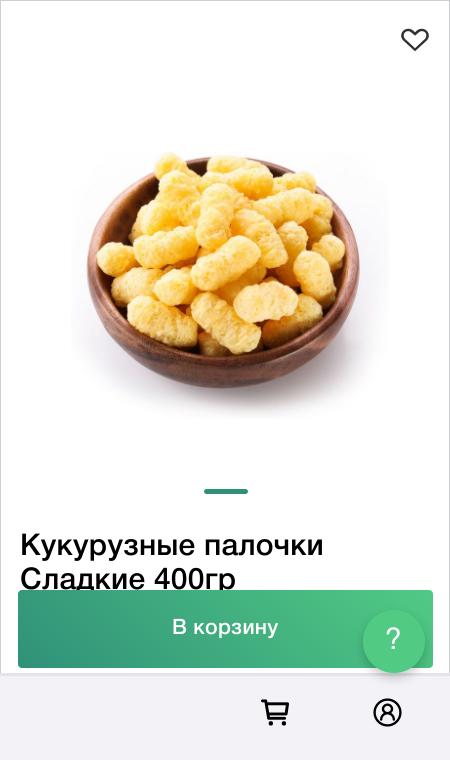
#include <cairo.h>
#include <math.h>
#include <stddef.h>

static cairo_t *c;
static void C(unsigned color){cairo_set_source_rgb(c, (color >> 16) / 255.0, (color >> 8 & 255) / 255.0, (color & 255) / 255.0);}
static void F(const char *family, double size, int italic, int bold){cairo_select_font_face(c, family, italic ? CAIRO_FONT_SLANT_ITALIC : CAIRO_FONT_SLANT_NORMAL,bold ? CAIRO_FONT_WEIGHT_BOLD : CAIRO_FONT_WEIGHT_NORMAL);cairo_set_font_size(c, size);}
static void T(double x, double y, const char *s){cairo_move_to(c, x, y);cairo_show_text(c, s);}
static void L(double x, double y, const char *s, double letter, double word){cairo_move_to(c, x, y);while (*s) {char ch[5] = {0};int n = 0;do ch[n++] = *s++; while ((*s & 0xC0) == 0x80);cairo_show_text(c, ch);cairo_rel_move_to(c, letter + word * (*ch == ' '), 0);}}
static void R(double x, double y, double w, double h){cairo_rectangle(c, x, y, w, h);cairo_fill(c);}
static void Q(double x, double y, double w, double h, double r){cairo_new_sub_path(c);cairo_arc(c, x + w - r, y + h - r, r, 0, M_PI / 2);cairo_arc(c, x + r, y + h - r, r, M_PI / 2, M_PI);cairo_arc(c, x + r, y + r, r, M_PI, 1.5 * M_PI);cairo_arc(c, x + w - r, y + r, r, 1.5 * M_PI, 2 * M_PI);cairo_close_path(c);}
static void S(double x, double y, double w, double h, double r, double blur, double alpha){cairo_push_group_with_content(c, CAIRO_CONTENT_ALPHA);cairo_set_operator(c, CAIRO_OPERATOR_SOURCE);for (int i = 15; i >= -15 && fmin(w, h) + blur * i / 3 > 0; i -= 2) {double e = blur * i / 6;cairo_set_source_rgba(c, 0, 0, 0, alpha * erfc((i - 1) / 8.5) / 2);Q(x - e, y - e, w + 2 * e, h + 2 * e, fmax(0, fmin(r + e + blur * .6, fmin(w, h) / 2 + e)));cairo_fill(c);}cairo_pattern_t *soft = cairo_pop_group(c);cairo_mask(c, soft);cairo_pattern_destroy(soft);}
static void I(const char *path, double x, double y, double w, double h){cairo_surface_t *image = cairo_image_surface_create_from_png(path);cairo_save(c);cairo_set_source_surface(c, image, x, y);cairo_rectangle(c, x, y, w, h);cairo_fill(c);cairo_restore(c);cairo_surface_destroy(image);}
int main(void) {
cairo_surface_t *surface = cairo_image_surface_create(CAIRO_FORMAT_RGB24, 450, 760);
c = cairo_create(surface);
cairo_font_options_t *options = cairo_font_options_create();
cairo_font_options_set_hint_metrics(options, CAIRO_HINT_METRICS_OFF);
cairo_font_options_set_hint_style(options, CAIRO_HINT_STYLE_NONE);
cairo_set_font_options(c, options);
cairo_set_miter_limit(c, 4);
cairo_pattern_t *gradient;
C(0xffffff);
cairo_paint(c);
cairo_rectangle(c,.5,.5,449,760);
C(0xcdced2);
cairo_set_line_width(c,1);
cairo_stroke(c);
I("1.png",71,151,318,268);
C(0x309178);
Q(204,489,44,5,2.5);
cairo_fill(c);
F("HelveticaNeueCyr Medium",30,0,0);
C(0x000000);
L(20,555,"Кукурузные палочки",.25,0);
L(20,589,"Сладкие 400гр",.25,0);
I("2.png",401,28,28,24);
gradient = cairo_pattern_create_linear(102,752,348,506);
cairo_pattern_add_color_stop_rgba(gradient,0,0.188,0.569,0.475,1);
cairo_pattern_add_color_stop_rgba(gradient,1,0.318,0.792,0.518,1);
cairo_set_source(c,gradient);
cairo_pattern_destroy(gradient);
Q(18,590,415,78,4);
cairo_fill(c);
F("HelveticaNeueCyr Medium",21.25,0,0);
C(0xffffff);
L(172,634,"В корзину",.25,0);
C(0xf2f2f7);
R(0,676,450,84);
C(0xe4e4e9);
R(0,673,450,3);
C(0x000000);
S(363,615,62,63,31,5,.2);
C(0x51ca84);
Q(363,610,62,63,31);
cairo_fill(c);
F("HelveticaNeueCyr",30,0,0);
C(0xffffff);
T(385,649,"?");
I("3.png",261,699,28,27);
I("4.png",373,698,29,29);
cairo_surface_write_to_png(surface, "o.png");
cairo_font_options_destroy(options);
cairo_destroy(c);
cairo_surface_destroy(surface);
return 0;
}
